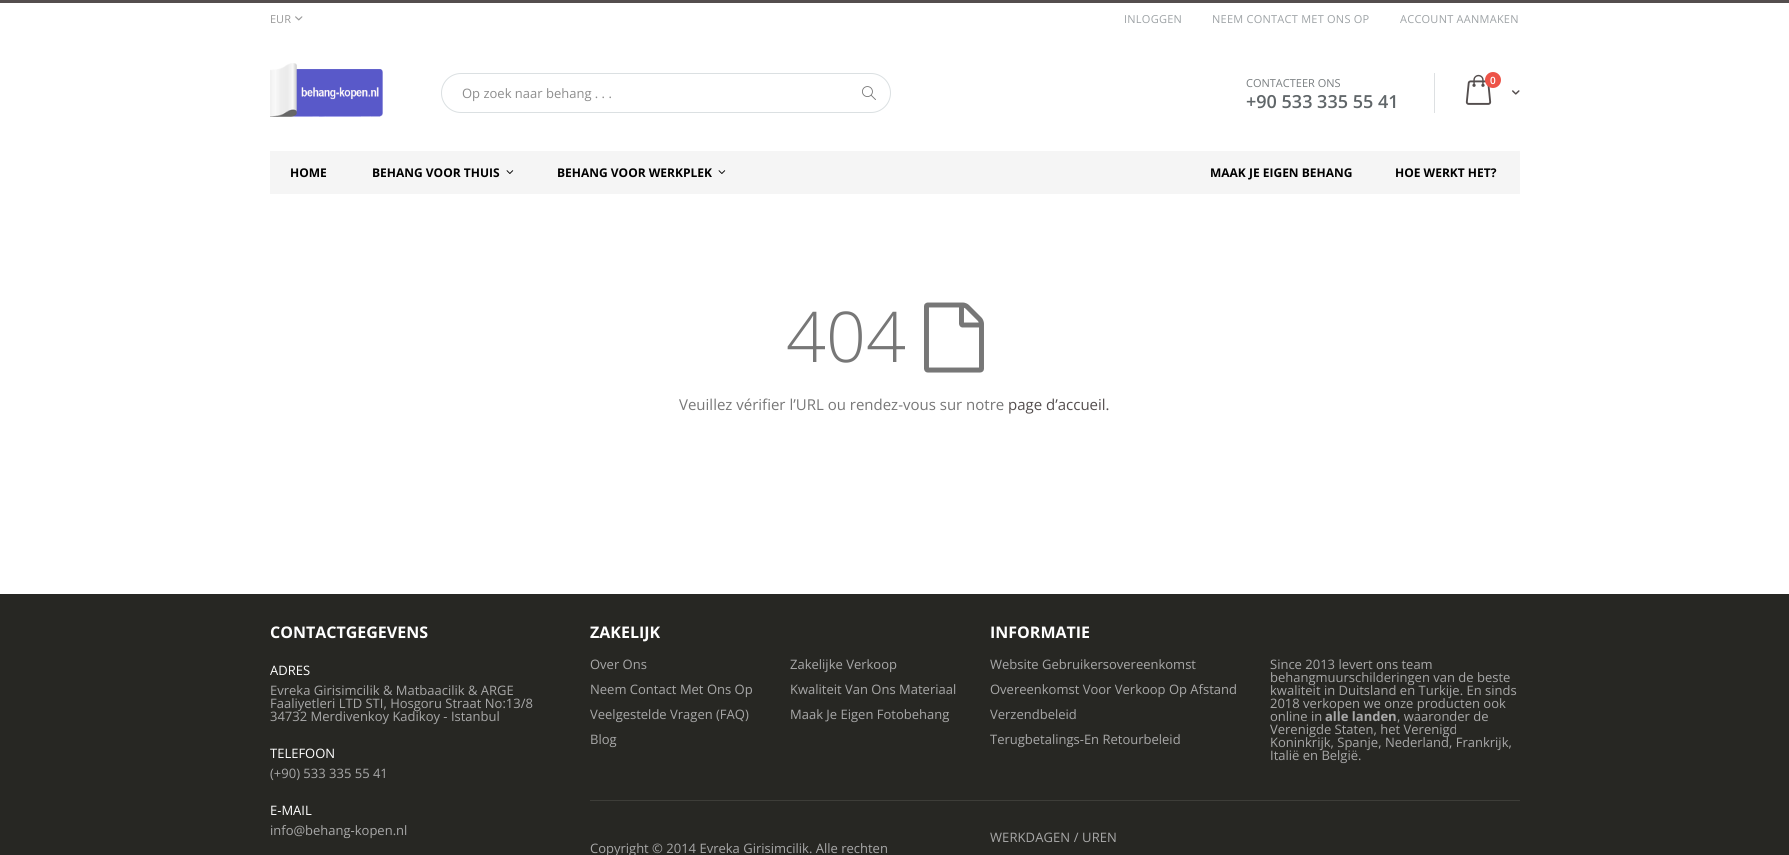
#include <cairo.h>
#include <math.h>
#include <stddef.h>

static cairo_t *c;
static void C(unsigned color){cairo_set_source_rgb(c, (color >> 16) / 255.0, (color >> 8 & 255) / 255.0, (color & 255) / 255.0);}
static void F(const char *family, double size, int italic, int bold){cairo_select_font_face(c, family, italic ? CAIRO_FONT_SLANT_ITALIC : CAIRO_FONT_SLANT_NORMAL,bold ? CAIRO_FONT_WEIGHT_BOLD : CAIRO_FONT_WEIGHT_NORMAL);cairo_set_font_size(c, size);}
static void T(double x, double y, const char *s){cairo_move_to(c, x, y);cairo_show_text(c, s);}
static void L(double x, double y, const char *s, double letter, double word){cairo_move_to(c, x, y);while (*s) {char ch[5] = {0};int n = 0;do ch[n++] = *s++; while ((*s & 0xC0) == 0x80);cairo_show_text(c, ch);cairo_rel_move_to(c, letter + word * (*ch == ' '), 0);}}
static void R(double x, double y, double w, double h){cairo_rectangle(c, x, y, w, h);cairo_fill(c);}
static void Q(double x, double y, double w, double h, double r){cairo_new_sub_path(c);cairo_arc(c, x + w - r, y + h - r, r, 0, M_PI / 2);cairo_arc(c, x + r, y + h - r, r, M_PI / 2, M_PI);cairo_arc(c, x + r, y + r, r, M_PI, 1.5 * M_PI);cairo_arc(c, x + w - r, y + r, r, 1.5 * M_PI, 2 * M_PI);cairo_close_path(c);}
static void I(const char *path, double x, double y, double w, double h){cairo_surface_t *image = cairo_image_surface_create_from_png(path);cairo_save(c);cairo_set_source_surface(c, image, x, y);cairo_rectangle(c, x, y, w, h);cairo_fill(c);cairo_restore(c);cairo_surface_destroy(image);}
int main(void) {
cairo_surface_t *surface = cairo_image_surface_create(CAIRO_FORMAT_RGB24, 1789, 855);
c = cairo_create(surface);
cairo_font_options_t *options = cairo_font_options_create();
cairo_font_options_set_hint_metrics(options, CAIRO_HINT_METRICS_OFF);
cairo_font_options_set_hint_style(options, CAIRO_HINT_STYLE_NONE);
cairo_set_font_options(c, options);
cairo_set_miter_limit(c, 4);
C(0xffffff);
cairo_paint(c);
C(0x544e4e);
R(0,0,1789,3);
F("Open Sans",11,0,0);
C(0x999999);
T(270,23,"EUR");
I("1.png",295,16,8,5);
C(0x9da2a5);
L(1124,23,"INLOGGEN",.25,0);
L(1212,23,"NEEM CONTACT MET ONS OP",.25,0);
L(1400,23,"ACCOUNT AANMAKEN",.25,0);
I("2.png",270,63,113,54);
Q(441.5,73.5,449,39,19.5);
C(0xdbe0e2);
cairo_set_line_width(c,1);
cairo_stroke(c);
F("Open Sans",13,0,0);
C(0x8d8d8d);
T(462,98,"Op zoek naar behang . . .");
I("3.png",862,86,14,14);
C(0xdde0e2);
R(1434,73,1,40);
F("Open Sans",11,0,0);
C(0x787d7f);
T(1246,87,"CONTACTEER ONS");
F("Open Sans SemiBold",18,0,0);
C(0x606669);
T(1246,108,"+90 533 335 55 41");
I("4.png",1465,74,27,31);
C(0xed5348);
cairo_arc(c,1493,80,8,0,2 * M_PI);
cairo_fill(c);
F("Open Sans SemiBold",10,0,0);
C(0xffffff);
T(1490,84,"0");
I("5.png",1512,90,8,5);
C(0xf5f5f5);
R(270,151,1250,43);
F("Open Sans",12,0,1);
C(0x000000);
T(290,177,"HOME");
T(372,177,"BEHANG VOOR THUIS");
I("6.png",506,170,8,4);
T(557,177,"BEHANG VOOR WERKPLEK");
I("6.png",718,170,8,4);
T(1210,177,"MAAK JE EIGEN BEHANG");
T(1395,177,"HOE WERKT HET?");
F("Open Sans Light",70,0,0);
C(0x777777);
T(786,362,"404");
I("7.png",924,302,60,71);
F("Open Sans",15,0,0);
T(679,410,"Veuillez vérifier l’URL ou rendez-vous sur notre");
C(0x544e4e);
T(1008,410,"page d’accueil.");
C(0x272723);
R(0,594,1789,261);
F("Open Sans",16,0,1);
C(0xffffff);
T(270,638,"CONTACTGEGEVENS");
F("Open Sans",13,0,0);
T(270,675,"ADRES");
C(0xa8a8a8);
T(270,695,"Evreka Girisimcilik & Matbaacilik & ARGE");
T(270,708,"Faaliyetleri LTD STI, Hosgoru Straat No:13/8");
T(270,721,"34732 Merdivenkoy Kadikoy - Istanbul");
C(0xffffff);
T(270,758,"TELEFOON");
C(0xa8a8a8);
T(270,778,"(+90) 533 335 55 41");
C(0xffffff);
T(270,815,"E-MAIL");
C(0xa8a8a8);
T(270,835,"info@behang-kopen.nl");
F("Open Sans",16,0,1);
C(0xffffff);
T(590,638,"ZAKELIJK");
F("Open Sans",13,0,0);
C(0xa8a8a8);
T(590,669,"Over Ons");
T(590,694,"Neem Contact Met Ons Op");
T(590,719,"Veelgestelde Vragen (FAQ)");
T(590,744,"Blog");
T(790,669,"Zakelijke Verkoop");
T(790,694,"Kwaliteit Van Ons Materiaal");
T(790,719,"Maak Je Eigen Fotobehang");
F("Open Sans",16,0,1);
C(0xffffff);
T(990,638,"INFORMATIE");
F("Open Sans",13,0,0);
C(0xa8a8a8);
T(990,669,"Website Gebruikersovereenkomst");
T(990,694,"Overeenkomst Voor Verkoop Op Afstand");
T(990,719,"Verzendbeleid");
T(990,744,"Terugbetalings-En Retourbeleid");
T(1270,669,"Since 2013 levert ons team");
T(1270,682,"behangmuurschilderingen van de beste");
T(1270,695,"kwaliteit in Duitsland en Turkije. En sinds");
T(1270,708,"2018 verkopen we onze producten ook");
T(1270,721,"online in");
F("Open Sans",13,0,1);
T(1325,721,"alle landen");
F("Open Sans",13,0,0);
T(1397,721,", waaronder de");
T(1270,734,"Verenigde Staten, het Verenigd");
T(1270,747,"Koninkrijk, Spanje, Nederland, Frankrijk,");
T(1270,760,"Italië en België.");
C(0x3d3d38);
R(590,800,930,1);
C(0xa8a8a8);
L(990,842,"WERKDAGEN / UREN",.1,0);
T(590,853,"Copyright © 2014 Evreka Girisimcilik. Alle rechten");
cairo_surface_write_to_png(surface, "o.png");
cairo_font_options_destroy(options);
cairo_destroy(c);
cairo_surface_destroy(surface);
return 0;
}
